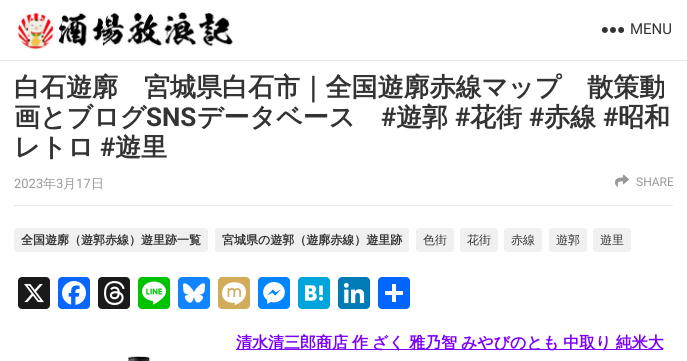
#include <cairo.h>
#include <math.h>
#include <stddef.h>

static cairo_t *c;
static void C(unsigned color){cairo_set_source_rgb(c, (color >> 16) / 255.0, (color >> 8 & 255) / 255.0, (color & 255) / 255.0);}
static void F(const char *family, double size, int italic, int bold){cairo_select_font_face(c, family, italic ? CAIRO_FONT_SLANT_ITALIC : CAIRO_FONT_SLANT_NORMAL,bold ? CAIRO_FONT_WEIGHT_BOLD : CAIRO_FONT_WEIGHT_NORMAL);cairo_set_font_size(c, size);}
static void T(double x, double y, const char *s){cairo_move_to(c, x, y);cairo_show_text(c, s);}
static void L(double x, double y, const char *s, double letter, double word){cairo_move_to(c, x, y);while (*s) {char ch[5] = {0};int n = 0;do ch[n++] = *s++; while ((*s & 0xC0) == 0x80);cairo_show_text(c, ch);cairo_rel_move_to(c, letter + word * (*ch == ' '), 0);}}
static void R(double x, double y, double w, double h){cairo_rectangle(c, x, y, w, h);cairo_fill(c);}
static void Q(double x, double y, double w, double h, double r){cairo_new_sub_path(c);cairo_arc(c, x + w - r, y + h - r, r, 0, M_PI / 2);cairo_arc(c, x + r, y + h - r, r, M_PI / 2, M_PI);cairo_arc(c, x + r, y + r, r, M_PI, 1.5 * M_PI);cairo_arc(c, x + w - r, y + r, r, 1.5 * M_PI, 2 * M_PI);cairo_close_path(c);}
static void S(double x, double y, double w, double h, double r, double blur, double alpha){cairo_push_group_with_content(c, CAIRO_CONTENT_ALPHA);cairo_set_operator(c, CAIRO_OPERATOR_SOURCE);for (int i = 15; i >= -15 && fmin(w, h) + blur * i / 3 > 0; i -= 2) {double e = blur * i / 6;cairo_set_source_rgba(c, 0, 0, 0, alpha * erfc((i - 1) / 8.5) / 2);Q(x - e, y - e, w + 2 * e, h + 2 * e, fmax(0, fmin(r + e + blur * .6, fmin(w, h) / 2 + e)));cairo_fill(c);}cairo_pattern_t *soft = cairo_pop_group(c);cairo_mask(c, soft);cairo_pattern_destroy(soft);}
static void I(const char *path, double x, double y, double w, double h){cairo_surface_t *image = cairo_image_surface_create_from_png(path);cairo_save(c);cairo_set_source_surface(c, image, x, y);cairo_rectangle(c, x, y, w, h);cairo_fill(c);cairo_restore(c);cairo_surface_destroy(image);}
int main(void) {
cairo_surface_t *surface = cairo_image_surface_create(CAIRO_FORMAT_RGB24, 687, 361);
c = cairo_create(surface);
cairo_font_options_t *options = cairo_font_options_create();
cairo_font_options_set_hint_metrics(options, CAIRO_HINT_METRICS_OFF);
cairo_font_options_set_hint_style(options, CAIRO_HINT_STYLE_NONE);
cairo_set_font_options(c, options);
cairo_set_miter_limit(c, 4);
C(0xffffff);
cairo_paint(c);
cairo_save(c);
cairo_rectangle(c,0,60,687,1);
cairo_clip(c);
C(0x000000);
S(0,0,687,60,0,.5,.4);
cairo_restore(c);
I("1.png",17,12,217,38);
I("2.png",601,27,24,6);
F("Roboto",15,0,0);
C(0x333333);
T(630,34,"MENU");
C(0xe9e9e9);
R(14,205,659,1);
F("WenQuanYi Zen Hei",26,0,1);
C(0x333333);
T(14,96,"白石遊廓　宮城県白石市｜全国遊廓赤線マップ　散策動");
T(14,126,"画とブログ");
F("Roboto",26,0,1);
T(146,126,"SNS");
F("WenQuanYi Zen Hei",26,0,1);
T(197,126,"データベース");
F("Roboto",26,0,1);
T(381,126,"#");
F("WenQuanYi Zen Hei",26,0,1);
T(396,126,"遊郭");
F("Roboto",26,0,1);
T(455,126,"#");
F("WenQuanYi Zen Hei",26,0,1);
T(470,126,"花街");
F("Roboto",26,0,1);
T(529,126,"#");
F("WenQuanYi Zen Hei",26,0,1);
T(544,126,"赤線");
F("Roboto",26,0,1);
T(603,126,"#");
F("WenQuanYi Zen Hei",26,0,1);
T(618,126,"昭和");
T(14,156,"レトロ");
F("Roboto",26,0,1);
T(100,156,"#");
F("WenQuanYi Zen Hei",26,0,1);
T(115,156,"遊里");
F("Roboto",13,0,0);
C(0x999999);
T(14,188,"2023");
F("WenQuanYi Zen Hei Medium",13,0,0);
T(43,188,"年");
F("Roboto",13,0,0);
T(56,188,"3");
F("WenQuanYi Zen Hei Medium",13,0,0);
T(63,188,"月");
F("Roboto",13,0,0);
T(76,188,"17");
F("WenQuanYi Zen Hei Medium",13,0,0);
T(91,188,"日");
I("3.png",615,174,14,13);
F("Roboto",12,0,0);
T(636,186,"SHARE");
C(0xf0f0f0);
Q(14,228,194,24,3);
cairo_fill(c);
F("WenQuanYi Zen Hei",12,0,1);
C(0x333333);
T(21,244,"全国遊廓（遊郭赤線）遊里跡一覧");
C(0xf0f0f0);
Q(215,228,194,24,3);
cairo_fill(c);
C(0x333333);
T(222,244,"宮城県の遊郭（遊廓赤線）遊里跡");
C(0xf0f0f0);
Q(416,228,38,24,3);
cairo_fill(c);
F("WenQuanYi Zen Hei Medium",12,0,0);
C(0x333333);
T(423,244,"色街");
C(0xf0f0f0);
Q(460,228,38,24,3);
cairo_fill(c);
C(0x333333);
T(467,244,"花街");
C(0xf0f0f0);
Q(504,228,38,24,3);
cairo_fill(c);
C(0x333333);
T(511,244,"赤線");
C(0xf0f0f0);
Q(549,228,38,24,3);
cairo_fill(c);
C(0x333333);
T(556,244,"遊郭");
C(0xf0f0f0);
Q(593,228,38,24,3);
cairo_fill(c);
C(0x333333);
T(600,244,"遊里");
C(0x1a1a1a);
Q(18,277,32,32,4);
cairo_fill(c);
I("4.png",24,284,20,19);
C(0x0866ff);
Q(58,277,32,32,4);
cairo_fill(c);
I("5.png",62,281,24,24);
C(0x1a1a1a);
Q(98,277,32,32,4);
cairo_fill(c);
I("6.png",104,281,21,24);
C(0x00c300);
Q(138,277,32,32,4);
cairo_fill(c);
I("7.png",142,281,24,24);
C(0x1285fe);
Q(178,277,32,32,4);
cairo_fill(c);
I("8.png",183,283,22,20);
C(0xd1ad5a);
Q(218,277,32,32,4);
cairo_fill(c);
I("9.png",222,282,24,23);
C(0x0084ff);
Q(258,277,32,32,4);
cairo_fill(c);
I("10.png",263,282,22,22);
C(0x00a6db);
Q(298,277,32,32,4);
cairo_fill(c);
I("11.png",304,285,19,16);
C(0x007bb5);
Q(338,277,32,32,4);
cairo_fill(c);
I("12.png",343,282,22,22);
C(0x0166ff);
Q(378,277,32,32,4);
cairo_fill(c);
C(0xffffff);
R(392,284,4,18);
R(385,291,18,4);
C(0x7b00ff);
R(236,349,427,1);
F("WenQuanYi Zen Hei",16,0,1);
L(236,348,"清水清三郎商店 作 ざく 雅乃智 みやびのとも 中取り 純米大",0,-.75);
I("13.png",128,356,23,5);
cairo_surface_write_to_png(surface, "o.png");
cairo_font_options_destroy(options);
cairo_destroy(c);
cairo_surface_destroy(surface);
return 0;
}
